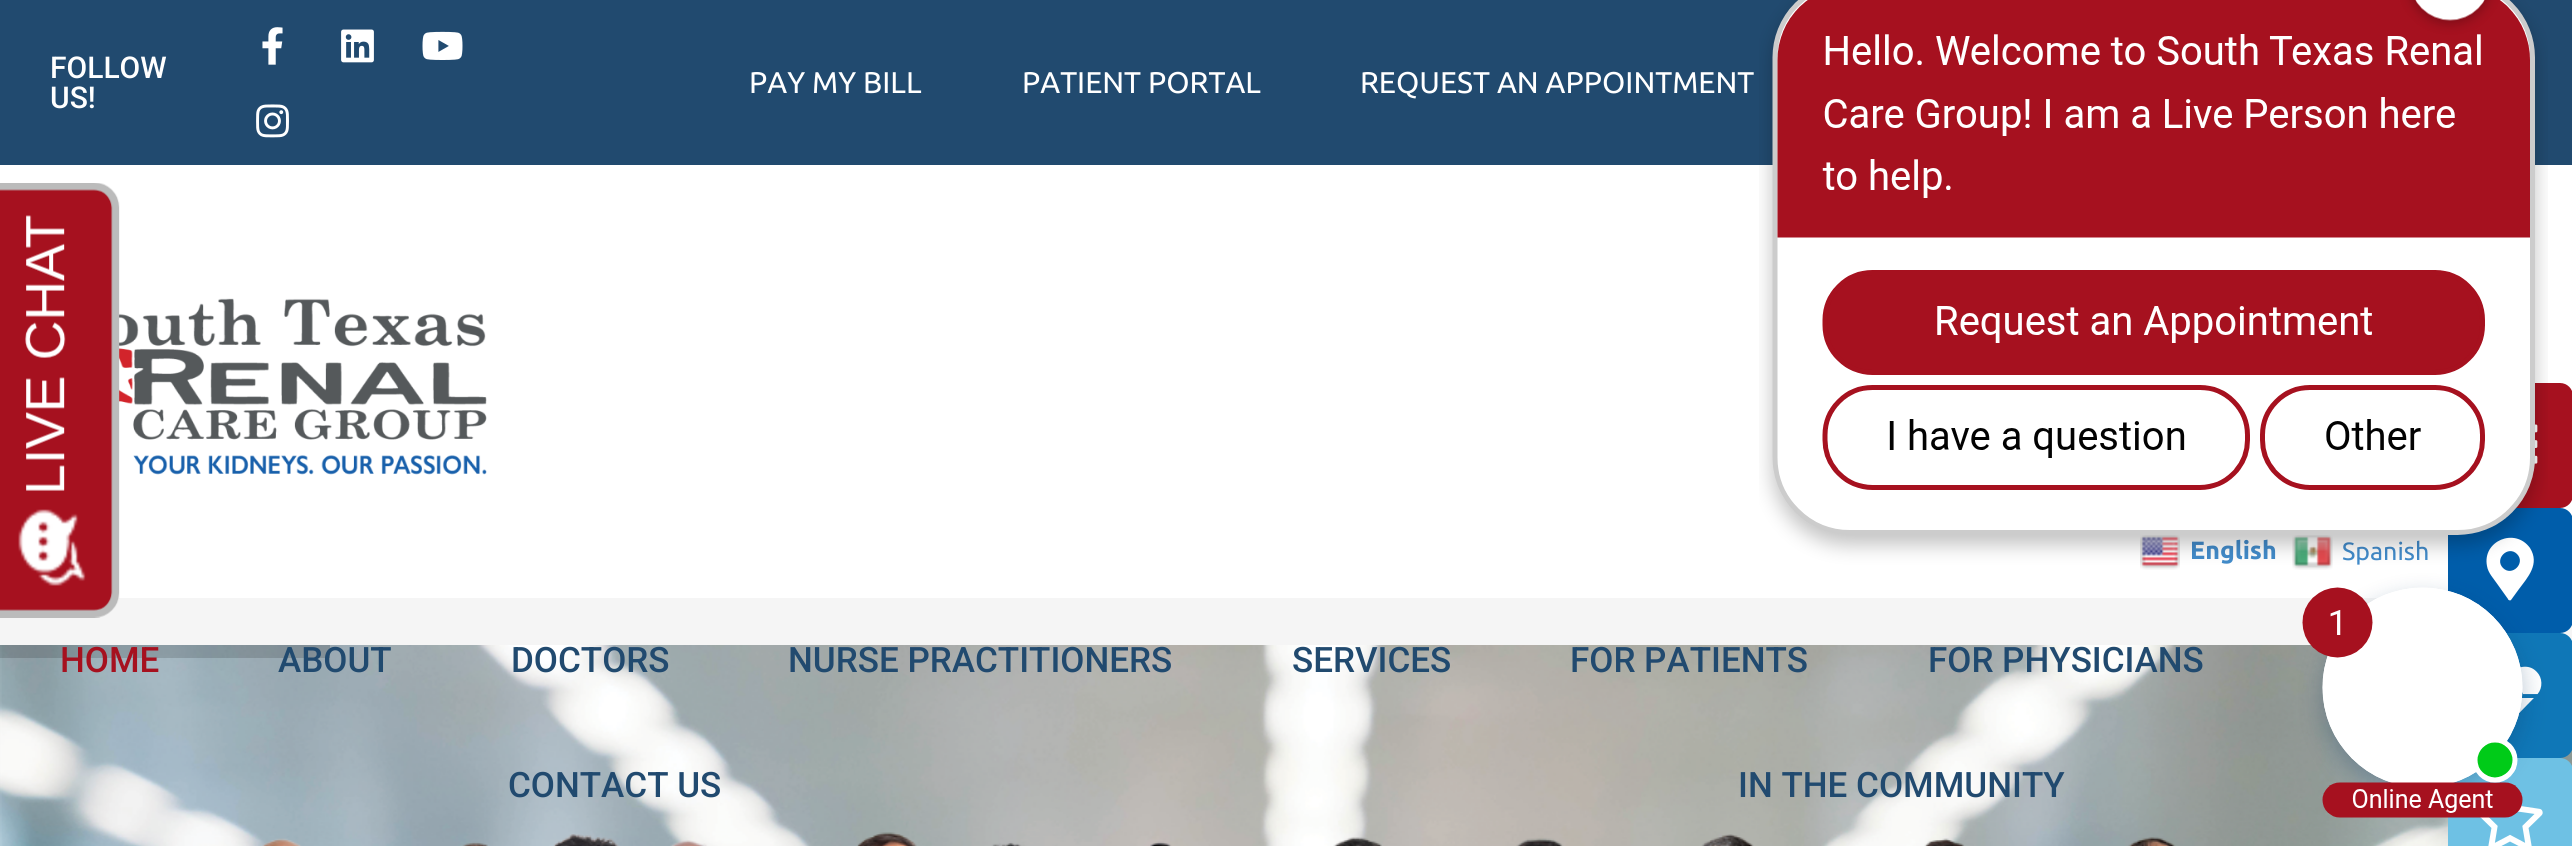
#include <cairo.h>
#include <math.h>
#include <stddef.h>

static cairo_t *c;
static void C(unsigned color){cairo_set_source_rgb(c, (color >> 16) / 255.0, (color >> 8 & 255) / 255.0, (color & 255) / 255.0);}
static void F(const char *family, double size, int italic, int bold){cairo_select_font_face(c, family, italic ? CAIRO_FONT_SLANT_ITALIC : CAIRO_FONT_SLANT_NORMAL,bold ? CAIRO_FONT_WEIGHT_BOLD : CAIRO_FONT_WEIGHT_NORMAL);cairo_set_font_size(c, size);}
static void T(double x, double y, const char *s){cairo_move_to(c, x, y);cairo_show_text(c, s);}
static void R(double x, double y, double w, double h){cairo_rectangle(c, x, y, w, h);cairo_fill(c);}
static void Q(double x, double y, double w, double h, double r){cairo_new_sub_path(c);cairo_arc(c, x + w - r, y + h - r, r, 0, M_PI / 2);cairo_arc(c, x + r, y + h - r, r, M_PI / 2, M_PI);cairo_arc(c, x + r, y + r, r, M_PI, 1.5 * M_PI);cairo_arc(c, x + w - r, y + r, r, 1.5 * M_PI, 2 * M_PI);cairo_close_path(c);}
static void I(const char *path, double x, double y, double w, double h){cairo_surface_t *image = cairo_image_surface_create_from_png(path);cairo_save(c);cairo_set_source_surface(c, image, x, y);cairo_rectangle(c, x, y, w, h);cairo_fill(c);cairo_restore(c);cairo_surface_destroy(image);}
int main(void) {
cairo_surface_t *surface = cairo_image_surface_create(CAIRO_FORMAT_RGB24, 2572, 846);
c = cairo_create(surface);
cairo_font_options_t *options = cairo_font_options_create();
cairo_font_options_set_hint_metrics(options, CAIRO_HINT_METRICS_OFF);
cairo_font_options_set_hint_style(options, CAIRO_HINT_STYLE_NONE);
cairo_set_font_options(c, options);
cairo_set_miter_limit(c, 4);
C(0xffffff);
cairo_paint(c);
C(0x214a6f);
R(0,0,2572,165);
I("7.png",2140,535,40,35);
F("Ubuntu",25,0,1);
C(0x428bca);
T(2190,559,"English");
I("8.png",2292,535,41,35);
F("Ubuntu",25,0,0);
T(2342,560,"Spanish");
C(0xf5f5f5);
R(0,598,2572,248);
I("13.png",0,645,2572,201);
F("Roboto Medium",35,0,0);
C(0x214a6f);
T(1570,672,"FOR PATIENTS");
T(1928,672,"FOR PHYSICIANS");
T(1738,797,"IN THE COMMUNITY");
C(0xa6111f);
Q(2448,383,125,125,13);
cairo_fill(c);
I("10.png",2533,424,5,48);
C(0x005daa);
Q(2448,508,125,125,13);
cairo_fill(c);
C(0xffffff);
cairo_new_path(c);
cairo_move_to(c,2508,599);
cairo_line_to(c,2498,585);
cairo_curve_to(c,2494,579,2488,573,2487,566);
cairo_curve_to(c,2482,541,2515,527,2530,548);
cairo_curve_to(c,2540,564,2528,577,2519,589);
cairo_line_to(c,2511,600);
cairo_curve_to(c,2510,601,2508,600,2508,599);
cairo_close_path(c);
cairo_move_to(c,2503,568);
cairo_curve_to(c,2512,577,2526,563,2517,554);
cairo_curve_to(c,2508,545,2494,559,2503,568);
cairo_close_path(c);
cairo_fill(c);
C(0x0f77b7);
Q(2448,633,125,125,13);
cairo_fill(c);
I("11.png",2518,666,24,49);
C(0x6ec1e4);
Q(2448,758,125,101,13);
cairo_fill(c);
I("12.png",2480,805,63,41);
I("1.png",1759,0,789,818);
F("Roboto Medium",30,0,0);
C(0xffffff);
T(50,78,"FOLLOW");
T(50,108,"US!");
I("2.png",262,27,21,38);
I("3.png",341,29,33,34);
I("4.png",422,31,41,29);
I("5.png",256,104,33,34);
F("Ubuntu",30,0,0);
T(749,93,"PAY MY BILL");
T(1022,93,"PATIENT PORTAL");
T(1360,93,"REQUEST AN APPOINTMENT");
I("6.png",119,298,368,177);
cairo_set_source_rgba(c,0,0,0,0.15);
R(0,645,330,13);
F("Roboto Medium",35,0,0);
C(0xa6111f);
T(60,672,"HOME");
C(0x214a6f);
T(278,672,"ABOUT");
T(511,672,"DOCTORS");
T(788,672,"NURSE PRACTITIONERS");
T(1292,672,"SERVICES");
T(508,797,"CONTACT US");
I("9.png",0,183,120,435);
cairo_surface_write_to_png(surface, "o.png");
cairo_font_options_destroy(options);
cairo_destroy(c);
cairo_surface_destroy(surface);
return 0;
}
